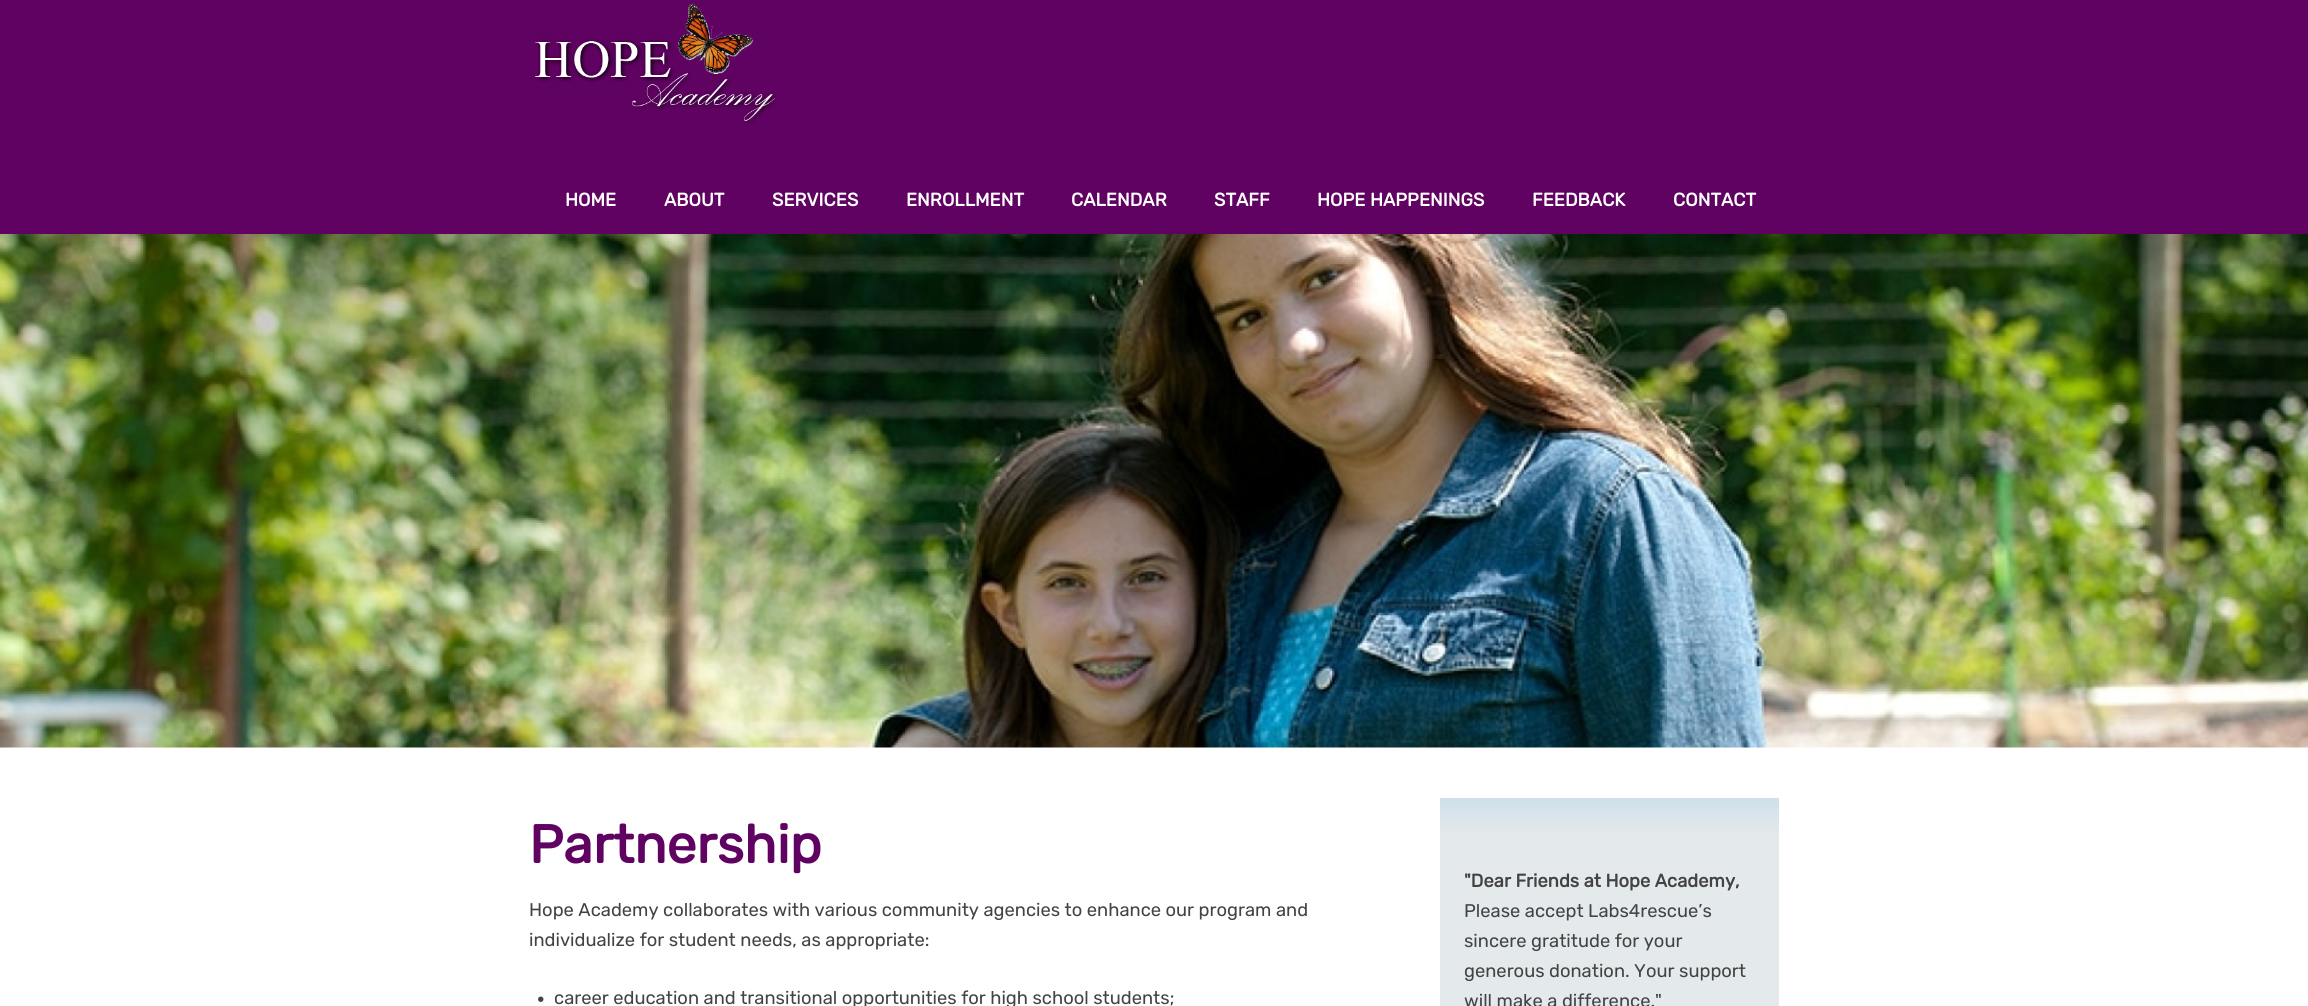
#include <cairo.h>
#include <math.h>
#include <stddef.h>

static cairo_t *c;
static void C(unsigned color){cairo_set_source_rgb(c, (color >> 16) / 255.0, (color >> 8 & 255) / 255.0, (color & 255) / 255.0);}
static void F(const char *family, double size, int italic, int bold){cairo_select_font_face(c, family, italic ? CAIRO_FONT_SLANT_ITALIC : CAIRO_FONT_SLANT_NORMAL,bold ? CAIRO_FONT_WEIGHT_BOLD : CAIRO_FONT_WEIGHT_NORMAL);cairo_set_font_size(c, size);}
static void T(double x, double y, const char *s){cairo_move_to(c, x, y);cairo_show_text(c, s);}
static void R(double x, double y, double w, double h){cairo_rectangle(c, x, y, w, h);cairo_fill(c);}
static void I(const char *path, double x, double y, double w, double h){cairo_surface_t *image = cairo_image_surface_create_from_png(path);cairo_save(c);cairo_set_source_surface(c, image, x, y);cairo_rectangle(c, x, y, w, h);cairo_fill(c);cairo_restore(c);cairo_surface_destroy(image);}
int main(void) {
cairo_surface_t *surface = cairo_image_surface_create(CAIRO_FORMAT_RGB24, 2308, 1006);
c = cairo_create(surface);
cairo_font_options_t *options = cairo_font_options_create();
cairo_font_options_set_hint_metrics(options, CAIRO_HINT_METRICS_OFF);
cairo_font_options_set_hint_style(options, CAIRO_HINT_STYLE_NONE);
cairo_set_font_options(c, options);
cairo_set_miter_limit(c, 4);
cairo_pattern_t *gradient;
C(0xffffff);
cairo_paint(c);
C(0x600262);
R(0,0,2308,234);
I("1.png",535,3,241,121);
F("Rubik",18.35,0,1);
C(0xffffff);
T(565,206,"HOME");
T(664,206,"ABOUT");
T(772,206,"SERVICES");
T(906,206,"ENROLLMENT");
T(1071,206,"CALENDAR");
T(1214,206,"STAFF");
T(1317,206,"HOPE HAPPENINGS");
T(1532,206,"FEEDBACK");
T(1673,206,"CONTACT");
I("2.png",0,234,2308,514);
F("Rubik",53.5,0,1);
C(0x600262);
T(529,863,"Partnership");
F("Rubik Light",18.35,0,0);
C(0x434343);
T(529,916,"Hope Academy collaborates with various community agencies to enhance our program and");
T(529,946,"individualize for student needs, as appropriate:");
F("Rubik Light",25,0,0);
T(536,1007,"•");
F("Rubik Light",18.35,0,0);
T(554,1004,"career education and transitional opportunities for high school students;");
gradient = cairo_pattern_create_linear(1609,798,1609,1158);
cairo_pattern_add_color_stop_rgba(gradient,.01,0.816,0.882,0.918,1);
cairo_pattern_add_color_stop_rgba(gradient,.1,0.894,0.914,0.925,1);
cairo_pattern_add_color_stop_rgba(gradient,.9,0.894,0.914,0.925,1);
cairo_pattern_add_color_stop_rgba(gradient,1,0.816,0.882,0.918,1);
cairo_set_source(c,gradient);
cairo_pattern_destroy(gradient);
R(1440,798,339,208);
F("Rubik",18.35,0,1);
C(0x434343);
T(1464,887,"\"Dear Friends at Hope Academy,");
F("Rubik Light",18.35,0,0);
T(1464,917,"Please accept Labs4rescue’s");
T(1464,947,"sincere gratitude for your");
T(1464,977,"generous donation. Your support");
T(1464,1007,"will make a difference.\"");
cairo_surface_write_to_png(surface, "o.png");
cairo_font_options_destroy(options);
cairo_destroy(c);
cairo_surface_destroy(surface);
return 0;
}
